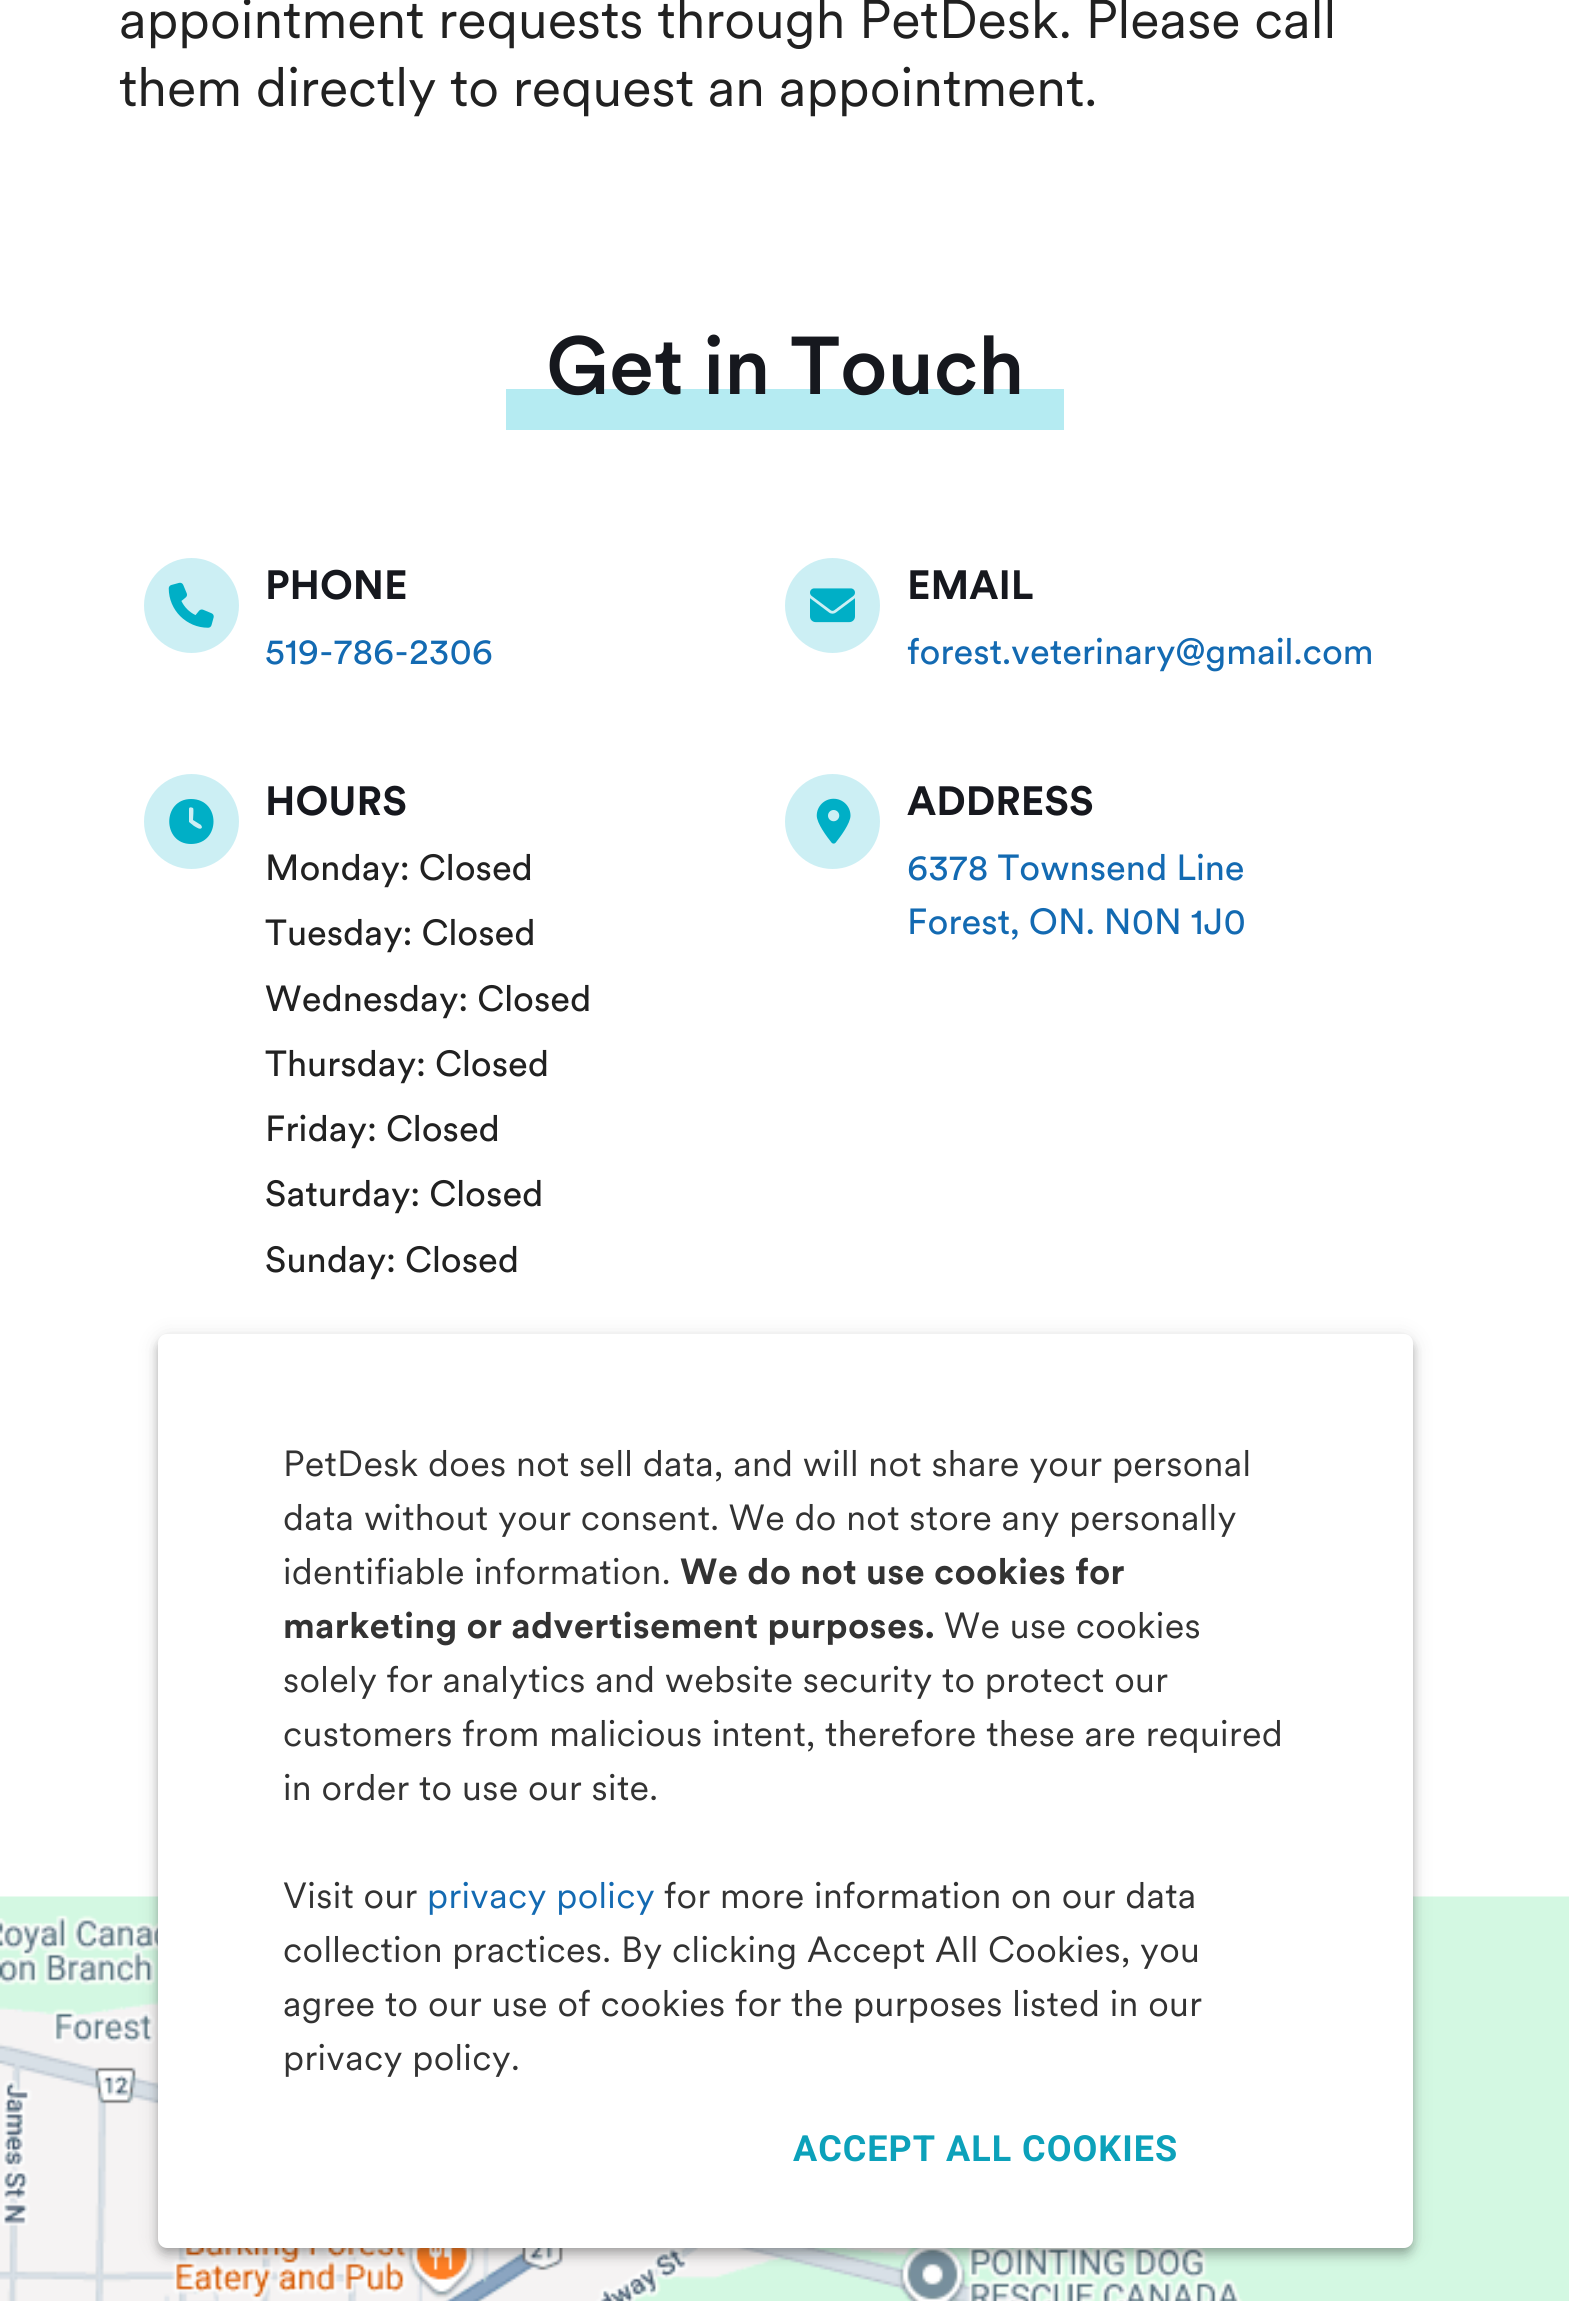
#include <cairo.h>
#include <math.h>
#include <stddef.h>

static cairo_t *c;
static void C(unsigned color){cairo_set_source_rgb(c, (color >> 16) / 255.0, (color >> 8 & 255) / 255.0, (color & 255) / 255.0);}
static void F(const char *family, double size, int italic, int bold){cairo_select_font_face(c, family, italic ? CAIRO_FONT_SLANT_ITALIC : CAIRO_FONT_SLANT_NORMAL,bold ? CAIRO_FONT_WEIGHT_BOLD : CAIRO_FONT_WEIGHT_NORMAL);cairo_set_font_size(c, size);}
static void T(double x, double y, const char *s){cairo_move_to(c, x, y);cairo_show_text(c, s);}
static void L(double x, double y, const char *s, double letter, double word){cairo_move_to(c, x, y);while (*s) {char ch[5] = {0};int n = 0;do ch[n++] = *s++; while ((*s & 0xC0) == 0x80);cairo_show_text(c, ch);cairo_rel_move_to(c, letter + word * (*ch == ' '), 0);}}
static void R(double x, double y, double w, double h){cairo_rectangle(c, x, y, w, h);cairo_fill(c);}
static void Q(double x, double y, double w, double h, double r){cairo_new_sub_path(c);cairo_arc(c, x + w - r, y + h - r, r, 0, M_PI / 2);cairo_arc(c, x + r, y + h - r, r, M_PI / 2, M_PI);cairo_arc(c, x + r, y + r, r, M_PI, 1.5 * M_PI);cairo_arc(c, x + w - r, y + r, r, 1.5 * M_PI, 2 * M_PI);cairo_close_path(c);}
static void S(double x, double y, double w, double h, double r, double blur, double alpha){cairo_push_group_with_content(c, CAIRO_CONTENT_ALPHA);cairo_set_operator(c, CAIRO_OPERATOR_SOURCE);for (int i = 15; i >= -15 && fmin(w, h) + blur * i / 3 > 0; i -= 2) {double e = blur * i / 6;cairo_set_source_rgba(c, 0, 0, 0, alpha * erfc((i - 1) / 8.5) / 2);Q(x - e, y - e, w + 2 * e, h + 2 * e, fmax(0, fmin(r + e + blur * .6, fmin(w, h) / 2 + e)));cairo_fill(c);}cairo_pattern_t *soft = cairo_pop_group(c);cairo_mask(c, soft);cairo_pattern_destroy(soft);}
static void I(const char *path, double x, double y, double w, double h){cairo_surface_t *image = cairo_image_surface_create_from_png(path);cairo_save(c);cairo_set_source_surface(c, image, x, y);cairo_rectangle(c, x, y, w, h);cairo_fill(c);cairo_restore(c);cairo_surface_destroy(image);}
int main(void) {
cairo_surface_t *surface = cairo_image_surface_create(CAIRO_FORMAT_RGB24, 1569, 2301);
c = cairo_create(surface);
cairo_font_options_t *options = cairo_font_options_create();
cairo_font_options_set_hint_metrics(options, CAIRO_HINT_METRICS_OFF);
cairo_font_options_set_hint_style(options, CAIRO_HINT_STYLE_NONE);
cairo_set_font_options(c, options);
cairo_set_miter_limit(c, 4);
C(0xffffff);
cairo_paint(c);
F("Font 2",54,0,0);
C(0x212121);
T(119,38,"appointment requests through PetDesk. Please call");
T(119,106,"them directly to request an appointment.");
C(0xb5ebf2);
R(506,389,558,41);
F("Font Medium",81,0,0);
C(0x16181e);
T(546,394,"Get in Touch");
C(0xcceff4);
cairo_new_path(c);
cairo_arc(c,191.5,605.5,47.5,0,2 * M_PI);
cairo_fill(c);
I("1.png",168,582,46,46);
F("Font",40.5,0,1);
C(0x16181e);
T(265,599,"PHONE");
F("Font",36,0,0);
C(0x136ab2);
T(265,664,"519-786-2306");
C(0xcceff4);
cairo_new_path(c);
cairo_arc(c,191.5,821.5,47.5,0,2 * M_PI);
cairo_fill(c);
C(0x00afc6);
cairo_new_path(c);
cairo_move_to(c,191,799);
cairo_curve_to(c,221,799,221,844,191,844);
cairo_curve_to(c,162,844,162,799,191,799);
cairo_close_path(c);
cairo_move_to(c,189,809);
cairo_line_to(c,189,822);
cairo_line_to(c,194,826);
cairo_curve_to(c,196,827,201,831,202,827);
cairo_line_to(c,201,825);
cairo_line_to(c,193,820);
cairo_curve_to(c,193,818,194,809,193,808);
cairo_curve_to(c,191,807,189,807,189,809);
cairo_close_path(c);
cairo_fill(c);
F("Font",40.5,0,1);
C(0x16181e);
T(265,815,"HOURS");
F("Font",36,0,0);
C(0x212121);
T(265,880,"Monday: Closed");
T(265,945,"Tuesday: Closed");
T(265,1011,"Wednesday: Closed");
T(265,1076,"Thursday: Closed");
T(265,1141,"Friday: Closed");
T(265,1206,"Saturday: Closed");
T(265,1272,"Sunday: Closed");
C(0xcceff4);
cairo_new_path(c);
cairo_arc(c,832.5,605.5,47.5,0,2 * M_PI);
cairo_fill(c);
I("2.png",810,588,45,35);
F("Font",40.5,0,1);
C(0x16181e);
T(907,599,"EMAIL");
F("Font",36,0,0);
C(0x136ab2);
T(907,664,"forest.veterinary@gmail.com");
C(0xcceff4);
cairo_new_path(c);
cairo_arc(c,832.5,821.5,47.5,0,2 * M_PI);
cairo_fill(c);
I("3.png",816,798,35,46);
F("Font",40.5,0,1);
C(0x16181e);
T(907,815,"ADDRESS");
F("Font",36,0,0);
C(0x136ab2);
T(907,880,"6378 Townsend Line");
T(907,934,"Forest, ON. N0N 1J0");
I("4.png",0,1896,1569,405);
C(0x000000);
S(158,1337,1255,913,9,11,.12);
S(158,1343,1255,914,9,5.5,.14);
S(160,1341,1251,909,7,4.5,.2);
C(0xffffff);
Q(158,1334,1255,914,9);
cairo_fill(c);
F("Font 2",36,0,0);
C(0x333333);
L(283,1476,"PetDesk does not sell data, and will not share your personal",.35,0);
L(283,1530,"data without your consent. We do not store any personally",.35,0);
L(283,1584,"identifiable information.",.35,0);
F("Font",36,0,1);
L(680,1584,"We do not use cookies for",.35,0);
L(283,1638,"marketing or advertisement purposes.",.35,0);
F("Font 2",36,0,0);
L(944,1638,"We use cookies",.35,0);
L(283,1692,"solely for analytics and website security to protect our",.35,0);
L(283,1746,"customers from malicious intent, therefore these are required",.35,0);
L(283,1800,"in order to use our site.",.35,0);
L(283,1908,"Visit our",.35,0);
C(0x136ab2);
L(427,1908,"privacy policy",.35,0);
C(0x333333);
L(664,1908,"for more information on our data",.35,0);
L(283,1962,"collection practices. By clicking Accept All Cookies, you",.35,0);
L(283,2016,"agree to our use of cookies for the purposes listed in our",.35,0);
L(283,2070,"privacy policy.",.35,0);
F("Roboto",36,0,1);
C(0x0ca1ba);
L(793,2161,"ACCEPT ALL COOKIES",1,0);
cairo_surface_write_to_png(surface, "o.png");
cairo_font_options_destroy(options);
cairo_destroy(c);
cairo_surface_destroy(surface);
return 0;
}
